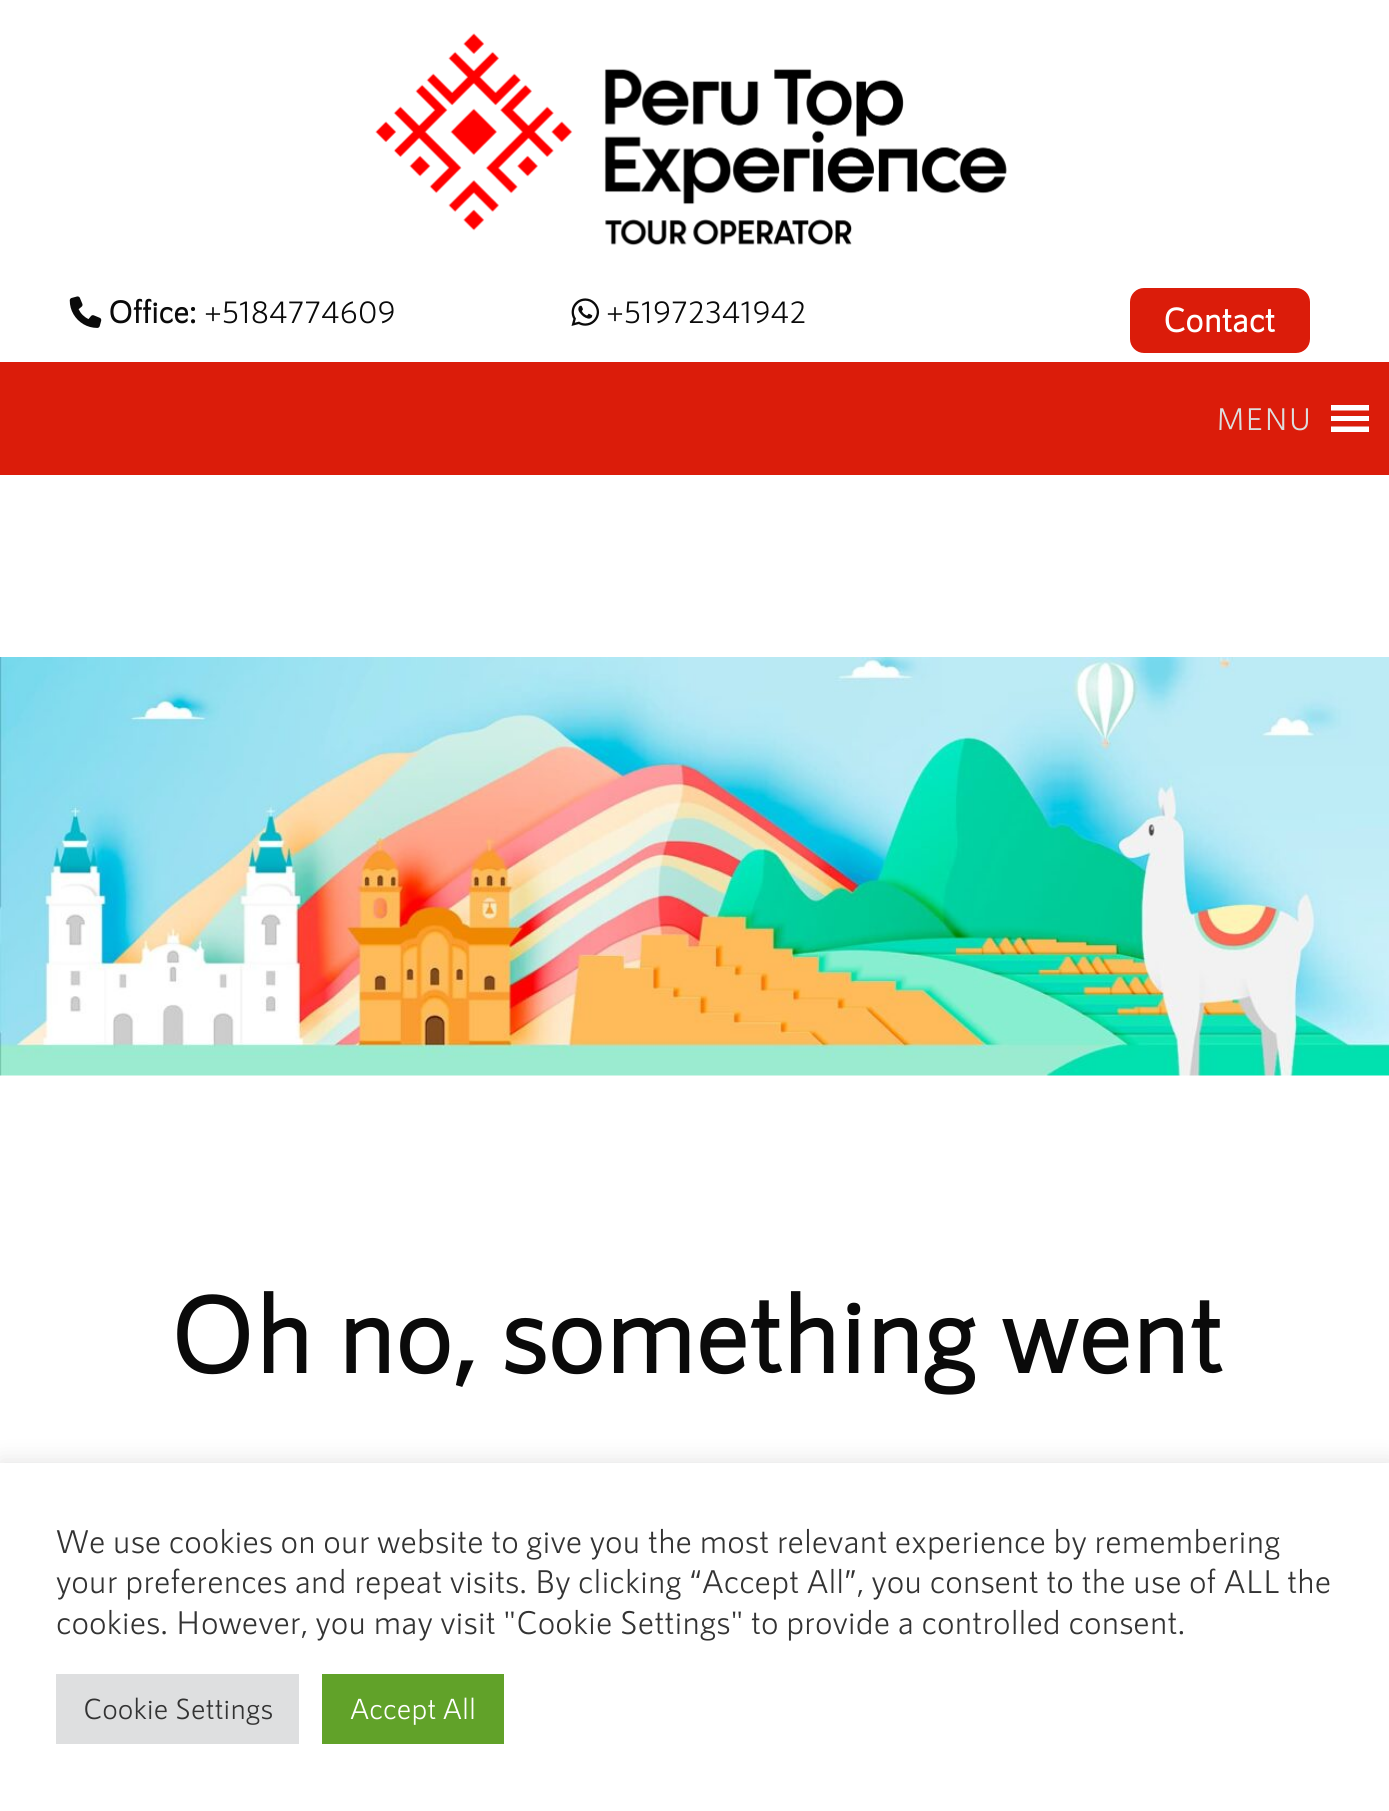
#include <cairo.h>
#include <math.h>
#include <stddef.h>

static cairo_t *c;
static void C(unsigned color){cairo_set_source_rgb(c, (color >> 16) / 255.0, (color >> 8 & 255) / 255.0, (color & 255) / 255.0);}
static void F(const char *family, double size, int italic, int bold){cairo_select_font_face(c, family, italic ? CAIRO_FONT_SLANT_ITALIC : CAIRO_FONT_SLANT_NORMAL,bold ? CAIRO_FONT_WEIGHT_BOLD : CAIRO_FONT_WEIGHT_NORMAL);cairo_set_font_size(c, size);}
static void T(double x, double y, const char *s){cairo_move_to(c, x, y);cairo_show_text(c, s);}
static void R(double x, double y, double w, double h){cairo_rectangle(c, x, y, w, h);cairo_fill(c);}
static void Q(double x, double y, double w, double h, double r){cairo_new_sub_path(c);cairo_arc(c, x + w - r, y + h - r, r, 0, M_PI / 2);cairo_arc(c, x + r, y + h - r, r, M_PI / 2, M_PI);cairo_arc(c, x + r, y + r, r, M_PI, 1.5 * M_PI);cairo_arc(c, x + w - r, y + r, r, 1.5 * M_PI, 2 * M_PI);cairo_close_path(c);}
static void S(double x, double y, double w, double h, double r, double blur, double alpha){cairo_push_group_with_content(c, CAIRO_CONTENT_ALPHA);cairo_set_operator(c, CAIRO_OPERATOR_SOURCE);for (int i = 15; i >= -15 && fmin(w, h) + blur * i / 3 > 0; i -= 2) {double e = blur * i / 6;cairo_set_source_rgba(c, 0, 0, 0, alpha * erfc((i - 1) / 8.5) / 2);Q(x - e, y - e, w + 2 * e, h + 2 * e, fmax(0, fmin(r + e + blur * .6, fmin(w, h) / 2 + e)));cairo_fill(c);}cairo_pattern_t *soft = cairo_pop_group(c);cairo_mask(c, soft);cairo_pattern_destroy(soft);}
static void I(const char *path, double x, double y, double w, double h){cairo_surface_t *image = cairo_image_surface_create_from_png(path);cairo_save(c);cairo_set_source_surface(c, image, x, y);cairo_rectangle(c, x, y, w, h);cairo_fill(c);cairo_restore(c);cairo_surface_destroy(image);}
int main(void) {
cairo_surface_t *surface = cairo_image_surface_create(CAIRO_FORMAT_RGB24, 1389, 1811);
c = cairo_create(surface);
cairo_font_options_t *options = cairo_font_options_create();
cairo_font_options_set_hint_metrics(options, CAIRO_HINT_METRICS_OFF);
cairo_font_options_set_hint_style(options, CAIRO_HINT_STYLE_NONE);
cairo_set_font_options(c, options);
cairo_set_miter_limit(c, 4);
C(0xffffff);
cairo_paint(c);
I("1.png",375,33,632,213);
I("2.png",69,296,33,32);
F("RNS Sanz",31.5,0,1);
C(0x0a0a0a);
T(108,323,"Office:");
F("RNS Sanz",31.5,0,0);
T(204,323,"+5184774609");
I("3.png",571,298,29,28);
T(606,323,"+51972341942");
C(0xdb1c0a);
Q(1130,288,180,65,14);
cairo_fill(c);
F("RNS Sanz",34,0,1);
C(0xffffff);
T(1163,332,"Contact");
C(0xdb1c0a);
R(0,362,1389,113);
F("RNS Sanz",31.5,0,0);
C(0xdddddd);
T(1216,430,"MENU");
C(0xffffff);
cairo_new_path(c);
cairo_move_to(c,1331,432);
cairo_line_to(c,1369,432);
cairo_line_to(c,1369,426.5);
cairo_line_to(c,1331,426.5);
cairo_close_path(c);
cairo_move_to(c,1331,405);
cairo_line_to(c,1331,410.5);
cairo_line_to(c,1369,410.5);
cairo_line_to(c,1369,405);
cairo_close_path(c);
cairo_move_to(c,1331,421);
cairo_line_to(c,1369,421);
cairo_line_to(c,1369,416);
cairo_line_to(c,1331,416);
cairo_close_path(c);
cairo_fill(c);
I("4.png",0,657,1389,419);
F("RNS Sanz",108,0,1);
C(0x0a0a0a);
T(169,1373,"Oh no, something went");
C(0xacabab);
S(0,1460,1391,349,0,11,.3);
C(0xffffff);
R(0,1463,1389,348);
F("RNS Sanz",33,0,0);
C(0x333333);
T(56,1553,"We use cookies on our website to give you the most relevant experience by remembering");
T(56,1593,"your preferences and repeat visits. By clicking “Accept All”, you consent to the use of ALL the");
T(56,1634,"cookies. However, you may visit \"Cookie Settings\" to provide a controlled consent.");
C(0xdedfe0);
R(56,1674,243,70);
F("RNS Sanz",29.25,0,0);
C(0x333333);
T(83,1719,"Cookie Settings");
C(0x61a229);
R(322,1674,182,70);
C(0xffffff);
T(350,1719,"Accept All");
cairo_surface_write_to_png(surface, "o.png");
cairo_font_options_destroy(options);
cairo_destroy(c);
cairo_surface_destroy(surface);
return 0;
}
